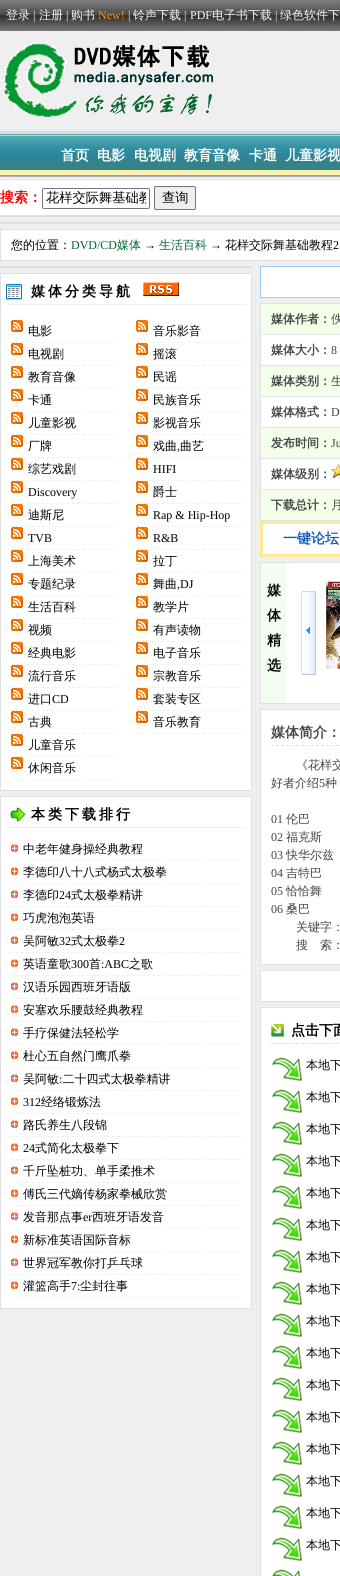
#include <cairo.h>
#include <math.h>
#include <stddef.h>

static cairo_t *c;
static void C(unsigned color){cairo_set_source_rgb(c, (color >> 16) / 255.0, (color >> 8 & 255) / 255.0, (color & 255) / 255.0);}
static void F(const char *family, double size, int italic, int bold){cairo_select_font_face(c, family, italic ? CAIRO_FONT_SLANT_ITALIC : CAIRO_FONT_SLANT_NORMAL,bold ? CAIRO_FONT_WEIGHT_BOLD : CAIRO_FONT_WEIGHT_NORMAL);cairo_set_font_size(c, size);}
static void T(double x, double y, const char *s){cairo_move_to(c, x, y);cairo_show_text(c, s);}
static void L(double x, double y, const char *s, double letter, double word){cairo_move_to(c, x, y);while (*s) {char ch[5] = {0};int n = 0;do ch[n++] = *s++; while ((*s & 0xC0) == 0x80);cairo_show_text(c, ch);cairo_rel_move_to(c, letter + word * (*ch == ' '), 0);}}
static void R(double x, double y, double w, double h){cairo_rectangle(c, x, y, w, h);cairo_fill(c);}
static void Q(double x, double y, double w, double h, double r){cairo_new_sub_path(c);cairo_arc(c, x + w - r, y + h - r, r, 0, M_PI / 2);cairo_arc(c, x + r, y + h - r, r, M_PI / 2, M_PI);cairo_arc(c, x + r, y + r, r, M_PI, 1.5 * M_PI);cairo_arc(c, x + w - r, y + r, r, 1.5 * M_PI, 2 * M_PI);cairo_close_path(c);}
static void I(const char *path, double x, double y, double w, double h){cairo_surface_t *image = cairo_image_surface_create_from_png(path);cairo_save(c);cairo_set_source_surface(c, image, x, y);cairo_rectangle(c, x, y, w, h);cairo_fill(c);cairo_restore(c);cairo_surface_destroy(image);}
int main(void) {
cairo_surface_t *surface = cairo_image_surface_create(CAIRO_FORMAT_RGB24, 340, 1576);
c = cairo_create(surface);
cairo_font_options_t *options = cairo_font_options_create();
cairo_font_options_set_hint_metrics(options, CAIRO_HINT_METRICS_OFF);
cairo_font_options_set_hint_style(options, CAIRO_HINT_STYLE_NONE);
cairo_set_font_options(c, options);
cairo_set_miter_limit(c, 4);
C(0xefefef);
cairo_paint(c);
I("1.png",0,0,340,31);
F("WenQuanYi Zen Hei Medium",12,0,0);
C(0xf6f6f6);
T(6,19,"登录");
F("Liberation Serif",12,0,0);
C(0xfdf8d0);
T(33,19,"|");
F("WenQuanYi Zen Hei Medium",12,0,0);
C(0xf6f6f6);
T(39,19,"注册");
F("Liberation Serif",12,0,0);
C(0xfdf8d0);
T(66,19,"|");
F("WenQuanYi Zen Hei Medium",12,0,0);
C(0xf6f6f6);
T(71,19,"购书");
F("Liberation Serif",12,0,0);
C(0xff9701);
T(98,19,"New!");
C(0xfdf8d0);
T(128,19,"|");
F("WenQuanYi Zen Hei Medium",12,0,0);
C(0xf6f6f6);
T(133,19,"铃声下载");
F("Liberation Serif",12,0,0);
C(0xfdf8d0);
T(184,19,"|");
C(0xf6f6f6);
T(190,19,"PDF");
F("WenQuanYi Zen Hei Medium",12,0,0);
T(212,19,"电子书下载");
F("Liberation Serif",12,0,0);
C(0xfdf8d0);
T(275,19,"|");
F("WenQuanYi Zen Hei Medium",12,0,0);
C(0xf6f6f6);
T(280,19,"绿色软件下");
I("2.png",4,43,209,74);
I("3.png",0,131,340,49);
F("WenQuanYi Zen Hei",14,0,1);
C(0xffffff);
T(61,160,"首页");
T(97,160,"电影");
T(134,160,"电视剧");
T(184,160,"教育音像");
T(249,160,"卡通");
T(285,160,"儿童影视");
R(0,180,340,35);
C(0xe0e0e0);
R(0,215,340,2);
C(0xff0000);
T(0,202,"搜索：");
Q(42.5,188.5,107,20,1.5);
C(0x767676);
cairo_set_line_width(c,1);
cairo_stroke(c);
cairo_save(c);
cairo_rectangle(c,46,190,100,17);
cairo_clip(c);
F("WenQuanYi Zen Hei Medium",13.25,0,0);
C(0x000000);
T(46,202,"花样交际舞基础教");
cairo_restore(c);
C(0xefefef);
Q(154.5,186.5,41,23,1.5);
cairo_fill_preserve(c);
C(0x767676);
cairo_stroke(c);
F("WenQuanYi Zen Hei Medium",13.25,0,0);
C(0x000000);
T(162,202,"查询");
C(0xe0e0e0);
R(0,222,340,2);
C(0xffffff);
cairo_rectangle(c,.5,229.5,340,31);
cairo_fill_preserve(c);
C(0xe0e0e0);
cairo_stroke(c);
F("WenQuanYi Zen Hei Medium",12,0,0);
C(0x000000);
T(11,249,"您的位置：");
F("Liberation Serif",12,0,0);
C(0x006633);
T(71,249,"DVD/CD");
F("WenQuanYi Zen Hei Medium",12,0,0);
T(117,249,"媒体");
F("Liberation Serif",12,0,0);
C(0x000000);
T(144,249,"→");
F("WenQuanYi Zen Hei Medium",12,0,0);
C(0x006633);
T(159,249,"生活百科");
F("Liberation Serif",12,0,0);
C(0x000000);
T(210,249,"→");
F("WenQuanYi Zen Hei Medium",12,0,0);
T(225,249,"花样交际舞基础教程");
F("Liberation Serif",12,0,0);
T(333,249,"2");
C(0xe0e0e0);
R(0,266,252,2);
C(0xffffff);
cairo_rectangle(c,.5,273.5,251,517);
cairo_fill_preserve(c);
C(0xe0e0e0);
cairo_stroke(c);
I("4.png",6,284,16,16);
C(0xefefef);
R(6,304,240,1);
F("WenQuanYi Zen Hei",14,0,1);
C(0x000000);
L(31,296,"媒体分类导航",3,0);
I("5.png",143,282,36,14);
cairo_new_path(c);
cairo_move_to(c,11,342.5);
cairo_line_to(c,116,342.5);
C(0xefefef);
cairo_set_dash(c,(double[]){3,2.1},2,0);
cairo_stroke(c);
I("6.png",11,320,12,12);
F("WenQuanYi Zen Hei Medium",12,0,0);
C(0x000000);
T(28,335,"电影");
cairo_new_path(c);
cairo_move_to(c,11,365.5);
cairo_line_to(c,116,365.5);
C(0xefefef);
cairo_stroke(c);
I("6.png",11,343,12,12);
C(0x000000);
T(28,358,"电视剧");
cairo_new_path(c);
cairo_move_to(c,11,388.5);
cairo_line_to(c,116,388.5);
C(0xefefef);
cairo_stroke(c);
I("6.png",11,366,12,12);
C(0x000000);
T(28,381,"教育音像");
cairo_new_path(c);
cairo_move_to(c,11,411.5);
cairo_line_to(c,116,411.5);
C(0xefefef);
cairo_stroke(c);
I("6.png",11,389,12,12);
C(0x000000);
T(28,404,"卡通");
cairo_new_path(c);
cairo_move_to(c,11,434.5);
cairo_line_to(c,116,434.5);
C(0xefefef);
cairo_stroke(c);
I("6.png",11,412,12,12);
C(0x000000);
T(28,427,"儿童影视");
cairo_new_path(c);
cairo_move_to(c,11,457.5);
cairo_line_to(c,116,457.5);
C(0xefefef);
cairo_stroke(c);
I("6.png",11,435,12,12);
C(0x000000);
T(28,450,"厂牌");
cairo_new_path(c);
cairo_move_to(c,11,480.5);
cairo_line_to(c,116,480.5);
C(0xefefef);
cairo_stroke(c);
I("6.png",11,458,12,12);
C(0x000000);
T(28,473,"综艺戏剧");
cairo_new_path(c);
cairo_move_to(c,11,503.5);
cairo_line_to(c,116,503.5);
C(0xefefef);
cairo_stroke(c);
I("6.png",11,481,12,12);
F("Liberation Serif",12,0,0);
C(0x000000);
T(28,496,"Discovery");
cairo_new_path(c);
cairo_move_to(c,11,526.5);
cairo_line_to(c,116,526.5);
C(0xefefef);
cairo_stroke(c);
I("6.png",11,504,12,12);
F("WenQuanYi Zen Hei Medium",12,0,0);
C(0x000000);
T(28,519,"迪斯尼");
cairo_new_path(c);
cairo_move_to(c,11,549.5);
cairo_line_to(c,116,549.5);
C(0xefefef);
cairo_stroke(c);
I("6.png",11,527,12,12);
F("Liberation Serif",12,0,0);
C(0x000000);
T(28,542,"TVB");
cairo_new_path(c);
cairo_move_to(c,11,572.5);
cairo_line_to(c,116,572.5);
C(0xefefef);
cairo_stroke(c);
I("6.png",11,550,12,12);
F("WenQuanYi Zen Hei Medium",12,0,0);
C(0x000000);
T(28,565,"上海美术");
cairo_new_path(c);
cairo_move_to(c,11,595.5);
cairo_line_to(c,116,595.5);
C(0xefefef);
cairo_stroke(c);
I("6.png",11,573,12,12);
C(0x000000);
T(28,588,"专题纪录");
cairo_new_path(c);
cairo_move_to(c,11,618.5);
cairo_line_to(c,116,618.5);
C(0xefefef);
cairo_stroke(c);
I("6.png",11,596,12,12);
C(0x000000);
T(28,611,"生活百科");
cairo_new_path(c);
cairo_move_to(c,11,641.5);
cairo_line_to(c,116,641.5);
C(0xefefef);
cairo_stroke(c);
I("6.png",11,619,12,12);
C(0x000000);
T(28,634,"视频");
cairo_new_path(c);
cairo_move_to(c,11,664.5);
cairo_line_to(c,116,664.5);
C(0xefefef);
cairo_stroke(c);
I("6.png",11,642,12,12);
C(0x000000);
T(28,657,"经典电影");
cairo_new_path(c);
cairo_move_to(c,11,687.5);
cairo_line_to(c,116,687.5);
C(0xefefef);
cairo_stroke(c);
I("6.png",11,665,12,12);
C(0x000000);
T(28,680,"流行音乐");
cairo_new_path(c);
cairo_move_to(c,11,710.5);
cairo_line_to(c,116,710.5);
C(0xefefef);
cairo_stroke(c);
I("6.png",11,688,12,12);
C(0x000000);
T(28,703,"进口");
F("Liberation Serif",12,0,0);
T(52,703,"CD");
cairo_new_path(c);
cairo_move_to(c,11,733.5);
cairo_line_to(c,116,733.5);
C(0xefefef);
cairo_stroke(c);
I("6.png",11,711,12,12);
F("WenQuanYi Zen Hei Medium",12,0,0);
C(0x000000);
T(28,726,"古典");
cairo_new_path(c);
cairo_move_to(c,11,756.5);
cairo_line_to(c,116,756.5);
C(0xefefef);
cairo_stroke(c);
I("6.png",11,734,12,12);
C(0x000000);
T(28,749,"儿童音乐");
cairo_new_path(c);
cairo_move_to(c,11,779.5);
cairo_line_to(c,116,779.5);
C(0xefefef);
cairo_stroke(c);
I("6.png",11,757,12,12);
C(0x000000);
T(28,772,"休闲音乐");
cairo_new_path(c);
cairo_move_to(c,136,342.5);
cairo_line_to(c,241,342.5);
C(0xefefef);
cairo_stroke(c);
I("6.png",136,320,12,12);
C(0x000000);
T(153,335,"音乐影音");
cairo_new_path(c);
cairo_move_to(c,136,365.5);
cairo_line_to(c,241,365.5);
C(0xefefef);
cairo_stroke(c);
I("6.png",136,343,12,12);
C(0x000000);
T(153,358,"摇滚");
cairo_new_path(c);
cairo_move_to(c,136,388.5);
cairo_line_to(c,241,388.5);
C(0xefefef);
cairo_stroke(c);
I("6.png",136,366,12,12);
C(0x000000);
T(153,381,"民谣");
cairo_new_path(c);
cairo_move_to(c,136,411.5);
cairo_line_to(c,241,411.5);
C(0xefefef);
cairo_stroke(c);
I("6.png",136,389,12,12);
C(0x000000);
T(153,404,"民族音乐");
cairo_new_path(c);
cairo_move_to(c,136,434.5);
cairo_line_to(c,241,434.5);
C(0xefefef);
cairo_stroke(c);
I("6.png",136,412,12,12);
C(0x000000);
T(153,427,"影视音乐");
cairo_new_path(c);
cairo_move_to(c,136,457.5);
cairo_line_to(c,241,457.5);
C(0xefefef);
cairo_stroke(c);
I("6.png",136,435,12,12);
C(0x000000);
T(153,450,"戏曲");
F("Liberation Serif",12,0,0);
T(177,450,",");
F("WenQuanYi Zen Hei Medium",12,0,0);
T(180,450,"曲艺");
cairo_new_path(c);
cairo_move_to(c,136,480.5);
cairo_line_to(c,241,480.5);
C(0xefefef);
cairo_stroke(c);
I("6.png",136,458,12,12);
F("Liberation Serif",12,0,0);
C(0x000000);
T(153,473,"HIFI");
cairo_new_path(c);
cairo_move_to(c,136,503.5);
cairo_line_to(c,241,503.5);
C(0xefefef);
cairo_stroke(c);
I("6.png",136,481,12,12);
F("WenQuanYi Zen Hei Medium",12,0,0);
C(0x000000);
T(153,496,"爵士");
cairo_new_path(c);
cairo_move_to(c,136,526.5);
cairo_line_to(c,241,526.5);
C(0xefefef);
cairo_stroke(c);
I("6.png",136,504,12,12);
F("Liberation Serif",12,0,0);
C(0x000000);
T(153,519,"Rap & Hip-Hop");
cairo_new_path(c);
cairo_move_to(c,136,549.5);
cairo_line_to(c,241,549.5);
C(0xefefef);
cairo_stroke(c);
I("6.png",136,527,12,12);
C(0x000000);
T(153,542,"R&B");
cairo_new_path(c);
cairo_move_to(c,136,572.5);
cairo_line_to(c,241,572.5);
C(0xefefef);
cairo_stroke(c);
I("6.png",136,550,12,12);
F("WenQuanYi Zen Hei Medium",12,0,0);
C(0x000000);
T(153,565,"拉丁");
cairo_new_path(c);
cairo_move_to(c,136,595.5);
cairo_line_to(c,241,595.5);
C(0xefefef);
cairo_stroke(c);
I("6.png",136,573,12,12);
C(0x000000);
T(153,588,"舞曲");
F("Liberation Serif",12,0,0);
T(177,588,",DJ");
cairo_new_path(c);
cairo_move_to(c,136,618.5);
cairo_line_to(c,241,618.5);
C(0xefefef);
cairo_stroke(c);
I("6.png",136,596,12,12);
F("WenQuanYi Zen Hei Medium",12,0,0);
C(0x000000);
T(153,611,"教学片");
cairo_new_path(c);
cairo_move_to(c,136,641.5);
cairo_line_to(c,241,641.5);
C(0xefefef);
cairo_stroke(c);
I("6.png",136,619,12,12);
C(0x000000);
T(153,634,"有声读物");
cairo_new_path(c);
cairo_move_to(c,136,664.5);
cairo_line_to(c,241,664.5);
C(0xefefef);
cairo_stroke(c);
I("6.png",136,642,12,12);
C(0x000000);
T(153,657,"电子音乐");
cairo_new_path(c);
cairo_move_to(c,136,687.5);
cairo_line_to(c,241,687.5);
C(0xefefef);
cairo_stroke(c);
I("6.png",136,665,12,12);
C(0x000000);
T(153,680,"宗教音乐");
cairo_new_path(c);
cairo_move_to(c,136,710.5);
cairo_line_to(c,241,710.5);
C(0xefefef);
cairo_stroke(c);
I("6.png",136,688,12,12);
C(0x000000);
T(153,703,"套装专区");
cairo_new_path(c);
cairo_move_to(c,136,733.5);
cairo_line_to(c,241,733.5);
C(0xefefef);
cairo_stroke(c);
I("6.png",136,711,12,12);
C(0x000000);
T(153,726,"音乐教育");
C(0xffffff);
cairo_rectangle(c,.5,796.5,251,512);
cairo_fill_preserve(c);
C(0xe0e0e0);
cairo_set_dash(c,NULL,0,0);
cairo_stroke(c);
I("7.png",10,807,16,15);
C(0xefefef);
R(6,827,240,1);
F("WenQuanYi Zen Hei",14,0,1);
C(0x000000);
L(31,819,"本类下载排行",3,0);
I("8.png",11,844,7,8);
cairo_new_path(c);
cairo_move_to(c,11,860.5);
cairo_line_to(c,241,860.5);
C(0xefefef);
cairo_set_dash(c,(double[]){3,2.04},2,0);
cairo_stroke(c);
F("WenQuanYi Zen Hei Medium",12,0,0);
C(0x000000);
T(23,853,"中老年健身操经典教程");
I("9.png",11,867,7,8);
cairo_new_path(c);
cairo_move_to(c,11,883.5);
cairo_line_to(c,241,883.5);
C(0xefefef);
cairo_stroke(c);
C(0x000000);
T(23,876,"李德印八十八式杨式太极拳");
I("8.png",11,890,7,8);
cairo_new_path(c);
cairo_move_to(c,11,906.5);
cairo_line_to(c,241,906.5);
C(0xefefef);
cairo_stroke(c);
C(0x000000);
T(23,899,"李德印");
F("Liberation Serif",12,0,0);
T(59,899,"24");
F("WenQuanYi Zen Hei Medium",12,0,0);
T(71,899,"式太极拳精讲");
I("8.png",11,913,7,8);
cairo_new_path(c);
cairo_move_to(c,11,929.5);
cairo_line_to(c,241,929.5);
C(0xefefef);
cairo_stroke(c);
C(0x000000);
T(23,922,"巧虎泡泡英语");
I("9.png",11,936,7,8);
cairo_new_path(c);
cairo_move_to(c,11,952.5);
cairo_line_to(c,241,952.5);
C(0xefefef);
cairo_stroke(c);
C(0x000000);
T(23,945,"吴阿敏");
F("Liberation Serif",12,0,0);
T(59,945,"32");
F("WenQuanYi Zen Hei Medium",12,0,0);
T(71,945,"式太极拳");
F("Liberation Serif",12,0,0);
T(119,945,"2");
I("9.png",11,959,7,8);
cairo_new_path(c);
cairo_move_to(c,11,975.5);
cairo_line_to(c,241,975.5);
C(0xefefef);
cairo_stroke(c);
F("WenQuanYi Zen Hei Medium",12,0,0);
C(0x000000);
T(23,968,"英语童歌");
F("Liberation Serif",12,0,0);
T(71,968,"300");
F("WenQuanYi Zen Hei Medium",12,0,0);
T(89,968,"首");
F("Liberation Serif",12,0,0);
T(101,968,":ABC");
F("WenQuanYi Zen Hei Medium",12,0,0);
T(129,968,"之歌");
I("9.png",11,982,7,8);
cairo_new_path(c);
cairo_move_to(c,11,998.5);
cairo_line_to(c,241,998.5);
C(0xefefef);
cairo_stroke(c);
C(0x000000);
T(23,991,"汉语乐园西班牙语版");
I("8.png",11,1005,7,8);
cairo_new_path(c);
cairo_move_to(c,11,1021.5);
cairo_line_to(c,241,1021.5);
C(0xefefef);
cairo_stroke(c);
C(0x000000);
T(23,1014,"安塞欢乐腰鼓经典教程");
I("9.png",11,1028,7,8);
cairo_new_path(c);
cairo_move_to(c,11,1044.5);
cairo_line_to(c,241,1044.5);
C(0xefefef);
cairo_stroke(c);
C(0x000000);
T(23,1037,"手疗保健法轻松学");
I("9.png",11,1051,7,8);
cairo_new_path(c);
cairo_move_to(c,11,1067.5);
cairo_line_to(c,241,1067.5);
C(0xefefef);
cairo_stroke(c);
C(0x000000);
T(23,1060,"杜心五自然门鹰爪拳");
I("9.png",11,1074,7,8);
cairo_new_path(c);
cairo_move_to(c,11,1090.5);
cairo_line_to(c,241,1090.5);
C(0xefefef);
cairo_stroke(c);
C(0x000000);
T(23,1083,"吴阿敏 二十四式太极拳精讲");
F("Liberation Serif",12,0,0);
T(59,1083,":");
I("8.png",11,1097,7,8);
cairo_new_path(c);
cairo_move_to(c,11,1113.5);
cairo_line_to(c,241,1113.5);
C(0xefefef);
cairo_stroke(c);
C(0x000000);
T(23,1106,"312");
F("WenQuanYi Zen Hei Medium",12,0,0);
T(41,1106,"经络锻炼法");
I("8.png",11,1120,7,8);
cairo_new_path(c);
cairo_move_to(c,11,1136.5);
cairo_line_to(c,241,1136.5);
C(0xefefef);
cairo_stroke(c);
C(0x000000);
T(23,1129,"路氏养生八段锦");
I("9.png",11,1143,7,8);
cairo_new_path(c);
cairo_move_to(c,11,1159.5);
cairo_line_to(c,241,1159.5);
C(0xefefef);
cairo_stroke(c);
F("Liberation Serif",12,0,0);
C(0x000000);
T(23,1152,"24");
F("WenQuanYi Zen Hei Medium",12,0,0);
T(35,1152,"式简化太极拳下");
I("8.png",11,1166,7,8);
cairo_new_path(c);
cairo_move_to(c,11,1182.5);
cairo_line_to(c,241,1182.5);
C(0xefefef);
cairo_stroke(c);
C(0x000000);
T(23,1175,"千斤坠桩功、单手柔推术");
I("8.png",11,1189,7,8);
cairo_new_path(c);
cairo_move_to(c,11,1205.5);
cairo_line_to(c,241,1205.5);
C(0xefefef);
cairo_stroke(c);
C(0x000000);
T(23,1198,"傅氏三代嫡传杨家拳械欣赏");
I("8.png",11,1212,7,8);
cairo_new_path(c);
cairo_move_to(c,11,1228.5);
cairo_line_to(c,241,1228.5);
C(0xefefef);
cairo_stroke(c);
C(0x000000);
T(23,1221,"发音那点事");
F("Liberation Serif",12,0,0);
T(83,1221,"er");
F("WenQuanYi Zen Hei Medium",12,0,0);
T(92,1221,"西班牙语发音");
I("8.png",11,1235,7,8);
cairo_new_path(c);
cairo_move_to(c,11,1251.5);
cairo_line_to(c,241,1251.5);
C(0xefefef);
cairo_stroke(c);
C(0x000000);
T(23,1244,"新标准英语国际音标");
I("8.png",11,1258,7,8);
cairo_new_path(c);
cairo_move_to(c,11,1274.5);
cairo_line_to(c,241,1274.5);
C(0xefefef);
cairo_stroke(c);
C(0x000000);
T(23,1267,"世界冠军教你打乒乓球");
I("9.png",11,1281,7,8);
cairo_new_path(c);
cairo_move_to(c,11,1297.5);
cairo_line_to(c,241,1297.5);
C(0xefefef);
cairo_stroke(c);
C(0x000000);
T(23,1290,"灌篮高手");
F("Liberation Serif",12,0,0);
T(71,1290,"7:");
F("WenQuanYi Zen Hei Medium",12,0,0);
T(80,1290,"尘封往事");
C(0xffffff);
cairo_rectangle(c,260.5,266.5,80,31);
cairo_fill_preserve(c);
C(0x99ccff);
cairo_set_dash(c,NULL,0,0);
cairo_stroke(c);
C(0xf3ffe9);
R(261,304,79,30);
C(0xe0e0e0);
R(260,303,80,1);
R(260,303,1,31);
F("WenQuanYi Zen Hei",12,0,1);
C(0x444444);
T(271,323,"媒体作者：");
F("WenQuanYi Zen Hei Medium",12,0,0);
T(331,323,"佚");
C(0xffffff);
R(261,335,79,30);
C(0xe0e0e0);
R(260,334,80,1);
R(260,334,1,31);
F("WenQuanYi Zen Hei",12,0,1);
C(0x444444);
T(271,354,"媒体大小：");
F("Liberation Serif",12,0,0);
T(331,354,"8");
C(0xf3ffe9);
R(261,366,79,30);
C(0xe0e0e0);
R(260,365,80,1);
R(260,365,1,31);
F("WenQuanYi Zen Hei",12,0,1);
C(0x444444);
T(271,385,"媒体类别：");
F("WenQuanYi Zen Hei Medium",12,0,0);
T(331,385,"生");
C(0xffffff);
R(261,397,79,30);
C(0xe0e0e0);
R(260,396,80,1);
R(260,396,1,31);
F("WenQuanYi Zen Hei",12,0,1);
C(0x444444);
T(271,416,"媒体格式：");
F("Liberation Serif",12,0,0);
T(331,416,"D");
C(0xf3ffe9);
R(261,428,79,30);
C(0xe0e0e0);
R(260,427,80,1);
R(260,427,1,31);
F("WenQuanYi Zen Hei",12,0,1);
C(0x444444);
T(271,447,"发布时间：");
F("Liberation Serif",12,0,0);
T(331,447,"Ju");
C(0xffffff);
R(261,459,79,30);
C(0xe0e0e0);
R(260,458,80,1);
R(260,458,1,31);
F("WenQuanYi Zen Hei",12,0,1);
C(0x444444);
T(271,478,"媒体级别：");
I("10.png",331,464,9,14);
C(0xf3ffe9);
cairo_rectangle(c,260.5,489.5,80,31);
cairo_fill_preserve(c);
C(0xe0e0e0);
cairo_stroke(c);
C(0x444444);
T(271,509,"下载总计：");
F("WenQuanYi Zen Hei Medium",12,0,0);
T(331,509,"月");
C(0xffffff);
cairo_rectangle(c,261.5,522.5,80,33);
cairo_fill_preserve(c);
C(0xfeea94);
cairo_set_line_width(c,3);
cairo_stroke(c);
F("WenQuanYi Zen Hei",14,0,1);
C(0x175cbb);
T(283,543,"一键论坛");
C(0xffffff);
R(286,563,54,140);
cairo_rectangle(c,260.5,562.5,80,141);
C(0xe0e0e0);
cairo_set_line_width(c,1);
cairo_stroke(c);
C(0xf2fcf1);
R(261,563,25,140);
C(0x000000);
T(267,595,"媒");
T(267,620,"体");
T(267,645,"精");
T(267,670,"选");
I("11.png",301,591,15,84);
I("12.png",326,581,14,93);
C(0xffffff);
cairo_rectangle(c,260.5,709.5,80,255);
cairo_fill_preserve(c);
C(0xe0e0e0);
cairo_stroke(c);
cairo_new_path(c);
cairo_move_to(c,271,745.5);
cairo_line_to(c,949,745.5);
cairo_set_dash(c,(double[]){3,2},2,0);
cairo_stroke(c);
C(0x444444);
T(271,737,"媒体简介：");
F("WenQuanYi Zen Hei Medium",12,0,0);
T(296,769,"《花样交");
T(271,787,"好者介绍");
F("Liberation Serif",12,0,0);
T(319,787,"5");
F("WenQuanYi Zen Hei Medium",12,0,0);
T(325,787,"种");
F("Liberation Serif",12,0,0);
T(271,823,"01");
F("WenQuanYi Zen Hei Medium",12,0,0);
T(286,823,"伦巴");
F("Liberation Serif",12,0,0);
T(271,841,"02");
F("WenQuanYi Zen Hei Medium",12,0,0);
T(286,841,"福克斯");
F("Liberation Serif",12,0,0);
T(271,859,"03");
F("WenQuanYi Zen Hei Medium",12,0,0);
T(286,859,"快华尔兹");
F("Liberation Serif",12,0,0);
T(271,877,"04");
F("WenQuanYi Zen Hei Medium",12,0,0);
T(286,877,"吉特巴");
F("Liberation Serif",12,0,0);
T(271,895,"05");
F("WenQuanYi Zen Hei Medium",12,0,0);
T(286,895,"恰恰舞");
F("Liberation Serif",12,0,0);
T(271,913,"06");
F("WenQuanYi Zen Hei Medium",12,0,0);
T(286,913,"桑巴");
T(296,931,"关键字：");
T(296,949,"搜　索：");
C(0xffffff);
cairo_rectangle(c,260.5,970.5,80,31);
cairo_fill_preserve(c);
C(0xe0e0e0);
cairo_set_dash(c,NULL,0,0);
cairo_stroke(c);
C(0xffffff);
cairo_rectangle(c,260.5,1007.5,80,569);
cairo_fill_preserve(c);
C(0xe0e0e0);
cairo_stroke(c);
I("13.png",271,1024,13,13);
cairo_new_path(c);
cairo_move_to(c,271,1043.5);
cairo_line_to(c,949,1043.5);
cairo_set_dash(c,(double[]){3,2},2,0);
cairo_stroke(c);
F("WenQuanYi Zen Hei",14,0,1);
C(0x000000);
T(291,1035,"点击下面");
I("14.png",272,1057,30,24);
F("WenQuanYi Zen Hei Medium",12,0,0);
T(306,1069,"本地下");
I("14.png",272,1089,30,24);
T(306,1101,"本地下");
I("14.png",272,1121,30,24);
T(306,1133,"本地下");
I("14.png",272,1153,30,24);
T(306,1165,"本地下");
I("14.png",272,1185,30,24);
T(306,1197,"本地下");
I("14.png",272,1217,30,24);
T(306,1229,"本地下");
I("14.png",272,1249,30,24);
T(306,1261,"本地下");
I("14.png",272,1281,30,24);
T(306,1293,"本地下");
I("14.png",272,1313,30,24);
T(306,1325,"本地下");
I("14.png",272,1345,30,24);
T(306,1357,"本地下");
I("14.png",272,1377,30,24);
T(306,1389,"本地下");
I("14.png",272,1409,30,24);
T(306,1421,"本地下");
I("14.png",272,1441,30,24);
T(306,1453,"本地下");
I("14.png",272,1473,30,24);
T(306,1485,"本地下");
I("14.png",272,1505,30,24);
T(306,1517,"本地下");
I("14.png",272,1537,30,24);
T(306,1549,"本地下");
I("15.png",272,1569,28,7);
cairo_surface_write_to_png(surface, "o.png");
cairo_font_options_destroy(options);
cairo_destroy(c);
cairo_surface_destroy(surface);
return 0;
}
